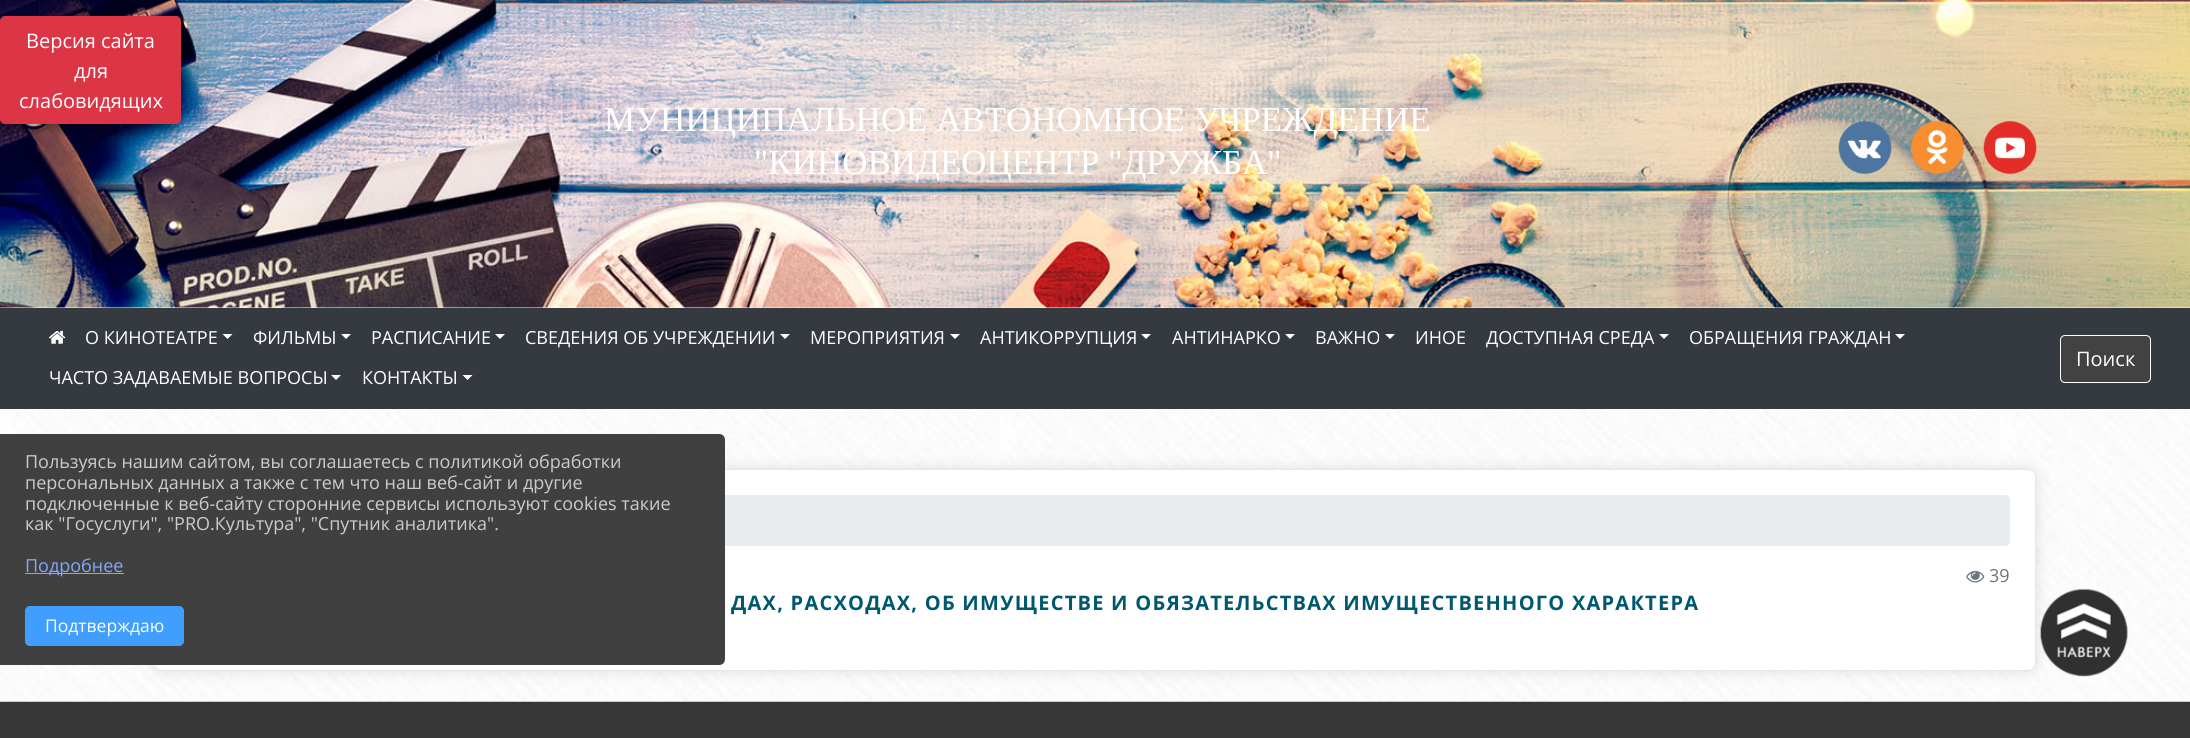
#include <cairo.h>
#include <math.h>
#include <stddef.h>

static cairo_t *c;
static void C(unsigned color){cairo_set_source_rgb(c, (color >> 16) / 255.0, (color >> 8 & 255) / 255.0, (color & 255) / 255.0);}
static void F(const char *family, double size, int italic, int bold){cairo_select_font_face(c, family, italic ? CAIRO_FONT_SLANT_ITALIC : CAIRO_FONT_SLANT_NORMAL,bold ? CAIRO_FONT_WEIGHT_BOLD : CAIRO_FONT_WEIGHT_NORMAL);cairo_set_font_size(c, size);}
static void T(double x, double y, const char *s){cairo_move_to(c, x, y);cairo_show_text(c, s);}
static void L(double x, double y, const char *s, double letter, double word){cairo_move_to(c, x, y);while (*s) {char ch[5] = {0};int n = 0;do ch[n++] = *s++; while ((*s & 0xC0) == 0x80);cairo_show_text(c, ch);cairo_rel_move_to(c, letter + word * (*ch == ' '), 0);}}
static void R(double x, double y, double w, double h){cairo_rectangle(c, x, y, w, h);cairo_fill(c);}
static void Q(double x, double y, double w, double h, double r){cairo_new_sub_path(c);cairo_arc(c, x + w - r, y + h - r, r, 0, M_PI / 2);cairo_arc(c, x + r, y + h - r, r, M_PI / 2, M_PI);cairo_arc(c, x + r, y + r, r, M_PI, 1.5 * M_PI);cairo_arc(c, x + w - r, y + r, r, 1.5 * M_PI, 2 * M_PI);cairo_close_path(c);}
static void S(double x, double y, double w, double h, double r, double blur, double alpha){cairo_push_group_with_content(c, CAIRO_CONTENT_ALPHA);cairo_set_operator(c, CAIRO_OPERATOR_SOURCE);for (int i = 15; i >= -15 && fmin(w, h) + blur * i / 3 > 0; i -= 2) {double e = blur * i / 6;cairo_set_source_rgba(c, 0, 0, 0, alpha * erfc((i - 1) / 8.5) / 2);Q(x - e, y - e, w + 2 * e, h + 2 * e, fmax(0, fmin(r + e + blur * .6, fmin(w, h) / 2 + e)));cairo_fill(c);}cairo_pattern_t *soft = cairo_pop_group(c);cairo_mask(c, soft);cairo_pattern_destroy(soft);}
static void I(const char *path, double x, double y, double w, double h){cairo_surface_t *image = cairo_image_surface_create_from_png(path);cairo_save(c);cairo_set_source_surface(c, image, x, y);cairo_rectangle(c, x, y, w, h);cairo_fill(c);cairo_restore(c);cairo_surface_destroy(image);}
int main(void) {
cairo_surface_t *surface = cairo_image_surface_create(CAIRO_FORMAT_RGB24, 2190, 738);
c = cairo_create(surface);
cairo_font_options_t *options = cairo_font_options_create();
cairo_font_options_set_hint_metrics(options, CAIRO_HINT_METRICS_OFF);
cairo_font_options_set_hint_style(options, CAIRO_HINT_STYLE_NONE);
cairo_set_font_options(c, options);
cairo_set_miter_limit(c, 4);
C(0xffffff);
cairo_paint(c);
I("1.png",0,307,2190,394);
I("2.png",0,0,2190,308);
C(0x000000);
S(-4,25,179,105,4,5,.35);
C(0xdc3545);
Q(.5,16.5,180,107,4.5);
cairo_fill_preserve(c);
cairo_set_line_width(c,1);
cairo_stroke(c);
F("Open Sans",20,0,0);
C(0xffffff);
T(26,48,"Версия сайта");
T(74,78,"для");
T(19,108,"слабовидящих");
F("Liberation Serif",35,0,0);
T(604,131,"МУНИЦИПАЛЬНОЕ АВТОНОМНОЕ УЧРЕЖДЕНИЕ");
T(754,174,"\"КИНОВИДЕОЦЕНТР \"ДРУЖБА\"");
I("3.png",1838,121,54,53);
I("4.png",1911,121,53,53);
I("5.png",1983,121,54,53);
C(0x343a40);
R(0,308,2190,101);
I("6.png",49,330,17,14);
F("Open Sans",18,0,0);
C(0xffffff);
T(85,344,"О КИНОТЕАТРЕ");
cairo_new_path(c);
cairo_move_to(c,222.5,334);
cairo_line_to(c,232.5,334);
cairo_line_to(c,227.5,339);
cairo_close_path(c);
cairo_fill(c);
T(253,344,"ФИЛЬМЫ");
cairo_new_path(c);
cairo_move_to(c,341,334);
cairo_line_to(c,351,334);
cairo_line_to(c,346,339);
cairo_close_path(c);
cairo_fill(c);
T(371,344,"РАСПИСАНИЕ");
cairo_new_path(c);
cairo_move_to(c,495,334);
cairo_line_to(c,505,334);
cairo_line_to(c,500,339);
cairo_close_path(c);
cairo_fill(c);
T(525,344,"СВЕДЕНИЯ ОБ УЧРЕЖДЕНИИ");
cairo_new_path(c);
cairo_move_to(c,780,334);
cairo_line_to(c,790,334);
cairo_line_to(c,785,339);
cairo_close_path(c);
cairo_fill(c);
T(810,344,"МЕРОПРИЯТИЯ");
cairo_new_path(c);
cairo_move_to(c,950,334);
cairo_line_to(c,960,334);
cairo_line_to(c,955,339);
cairo_close_path(c);
cairo_fill(c);
T(980,344,"АНТИКОРРУПЦИЯ");
cairo_new_path(c);
cairo_move_to(c,1141,334);
cairo_line_to(c,1151,334);
cairo_line_to(c,1146,339);
cairo_close_path(c);
cairo_fill(c);
T(1172,344,"АНТИНАРКО");
cairo_new_path(c);
cairo_move_to(c,1285,334);
cairo_line_to(c,1295,334);
cairo_line_to(c,1290,339);
cairo_close_path(c);
cairo_fill(c);
T(1315,344,"ВАЖНО");
cairo_new_path(c);
cairo_move_to(c,1385,334);
cairo_line_to(c,1395,334);
cairo_line_to(c,1390,339);
cairo_close_path(c);
cairo_fill(c);
T(1415,344,"ИНОЕ");
T(1486,344,"ДОСТУПНАЯ СРЕДА");
cairo_new_path(c);
cairo_move_to(c,1659,334);
cairo_line_to(c,1669,334);
cairo_line_to(c,1664,339);
cairo_close_path(c);
cairo_fill(c);
T(1689,344,"ОБРАЩЕНИЯ ГРАЖДАН");
cairo_new_path(c);
cairo_move_to(c,1895,334);
cairo_line_to(c,1905,334);
cairo_line_to(c,1900,339);
cairo_close_path(c);
cairo_fill(c);
T(49,384,"ЧАСТО ЗАДАВАЕМЫЕ ВОПРОСЫ");
cairo_new_path(c);
cairo_move_to(c,331,375);
cairo_line_to(c,341,375);
cairo_line_to(c,336,380);
cairo_close_path(c);
cairo_fill(c);
T(362,384,"КОНТАКТЫ");
cairo_new_path(c);
cairo_move_to(c,462.5,375);
cairo_line_to(c,472.5,375);
cairo_line_to(c,467.5,380);
cairo_close_path(c);
cairo_fill(c);
C(0x424242);
Q(2060.5,335.5,90,47,4.5);
cairo_fill_preserve(c);
C(0xffffff);
cairo_stroke(c);
F("Open Sans",20,0,0);
T(2076,366,"Поиск");
C(0x000000);
S(154,469,1882,202,8,7.5,.12);
C(0xffffff);
Q(154.5,469.5,1881,201,7.5);
cairo_fill_preserve(c);
C(0xe4e7ed);
cairo_stroke(c);
C(0xe9ecef);
Q(180,495,1830,51,5);
cairo_fill(c);
I("7.png",1966,570,19,13);
F("Open Sans",18,0,0);
C(0x6c757d);
T(1989,582,"39");
F("Open Sans",20,0,1);
C(0x00586f);
L(731,610,"ДАХ, РАСХОДАХ, ОБ ИМУЩЕСТВЕ И ОБЯЗАТЕЛЬСТВАХ ИМУЩЕСТВЕННОГО ХАРАКТЕРА",1.25,0);
C(0x373636);
R(0,702,2190,36);
C(0xcccccc);
R(0,701,2190,1);
I("8.png",2040,589,88,88);
C(0x404040);
cairo_new_path(c);
cairo_move_to(c,0,434);
cairo_line_to(c,719,434);
cairo_curve_to(c,722.5,434,725,436.5,725,440);
cairo_line_to(c,725,659);
cairo_curve_to(c,725,662.5,722.5,665,719,665);
cairo_line_to(c,0,665);
cairo_close_path(c);
cairo_fill(c);
F("Open Sans",18,0,0);
C(0xcccccc);
T(25,468,"Пользуясь нашим сайтом, вы соглашаетесь с политикой обработки");
T(25,489,"персональных данных а также с тем что наш веб-сайт и другие");
T(25,510,"подключенные к веб-сайту сторонние сервисы используют cookies такие");
T(25,530,"как \"Госуслуги\", \"PRO.Культура\", \"Спутник аналитика\".");
C(0x85a6f9);
R(25,573,99,1);
T(25,572,"Подробнее");
C(0x409eff);
Q(25.5,606.5,158,39,4.5);
cairo_fill_preserve(c);
cairo_stroke(c);
F("Open Sans",17.5,0,0);
C(0xffffff);
T(45,632,"Подтверждаю");
cairo_surface_write_to_png(surface, "o.png");
cairo_font_options_destroy(options);
cairo_destroy(c);
cairo_surface_destroy(surface);
return 0;
}
